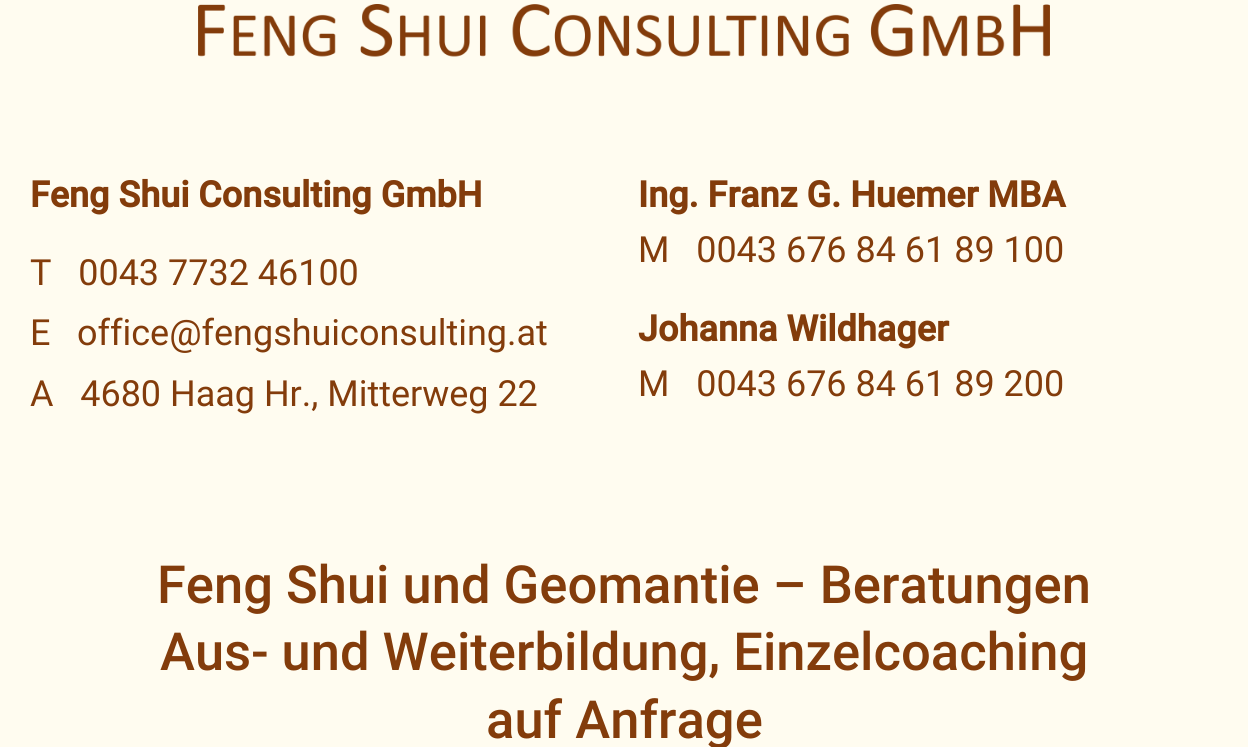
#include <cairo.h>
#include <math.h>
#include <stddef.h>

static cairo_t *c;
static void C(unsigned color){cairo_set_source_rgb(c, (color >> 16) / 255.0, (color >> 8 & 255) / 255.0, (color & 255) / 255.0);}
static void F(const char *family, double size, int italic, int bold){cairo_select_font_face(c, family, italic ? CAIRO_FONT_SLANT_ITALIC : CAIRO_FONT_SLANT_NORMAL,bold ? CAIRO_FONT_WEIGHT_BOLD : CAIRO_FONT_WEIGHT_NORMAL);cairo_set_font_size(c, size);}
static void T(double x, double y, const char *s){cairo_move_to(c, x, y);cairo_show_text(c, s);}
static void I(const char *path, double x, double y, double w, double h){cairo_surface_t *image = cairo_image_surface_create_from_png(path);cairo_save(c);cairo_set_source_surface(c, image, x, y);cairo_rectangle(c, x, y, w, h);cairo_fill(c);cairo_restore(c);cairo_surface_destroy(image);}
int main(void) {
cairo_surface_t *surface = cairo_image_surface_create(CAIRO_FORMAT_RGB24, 1248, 747);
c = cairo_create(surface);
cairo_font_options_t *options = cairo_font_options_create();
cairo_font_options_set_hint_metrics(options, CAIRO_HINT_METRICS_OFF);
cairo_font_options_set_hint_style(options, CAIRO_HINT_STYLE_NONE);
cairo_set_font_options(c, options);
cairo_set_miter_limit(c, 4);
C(0xfffcf0);
cairo_paint(c);
I("1.png",198,4,852,53);
F("Roboto",36,0,1);
C(0x833c0b);
T(30,207,"Feng Shui Consulting GmbH");
F("Roboto",36,0,0);
T(30,285,"T   0043 7732 46100");
T(30,345,"E");
T(77,345,"office@fengshuiconsulting.at");
T(30,406,"A   4680 Haag Hr., Mitterweg 22");
F("Roboto",36,0,1);
T(638,207,"Ing. Franz G. Huemer MBA");
F("Roboto",36,0,0);
T(638,262,"M   0043 676 84 61 89 100");
F("Roboto",36,0,1);
T(638,341,"Johanna Wildhager");
F("Roboto",36,0,0);
T(638,396,"M   0043 676 84 61 89 200");
F("Roboto Medium",52.5,0,0);
T(157,603,"Feng Shui und Geomantie – Beratungen");
T(160,670,"Aus- und Weiterbildung, Einzelcoaching");
T(486,738,"auf Anfrage");
cairo_surface_write_to_png(surface, "o.png");
cairo_font_options_destroy(options);
cairo_destroy(c);
cairo_surface_destroy(surface);
return 0;
}
